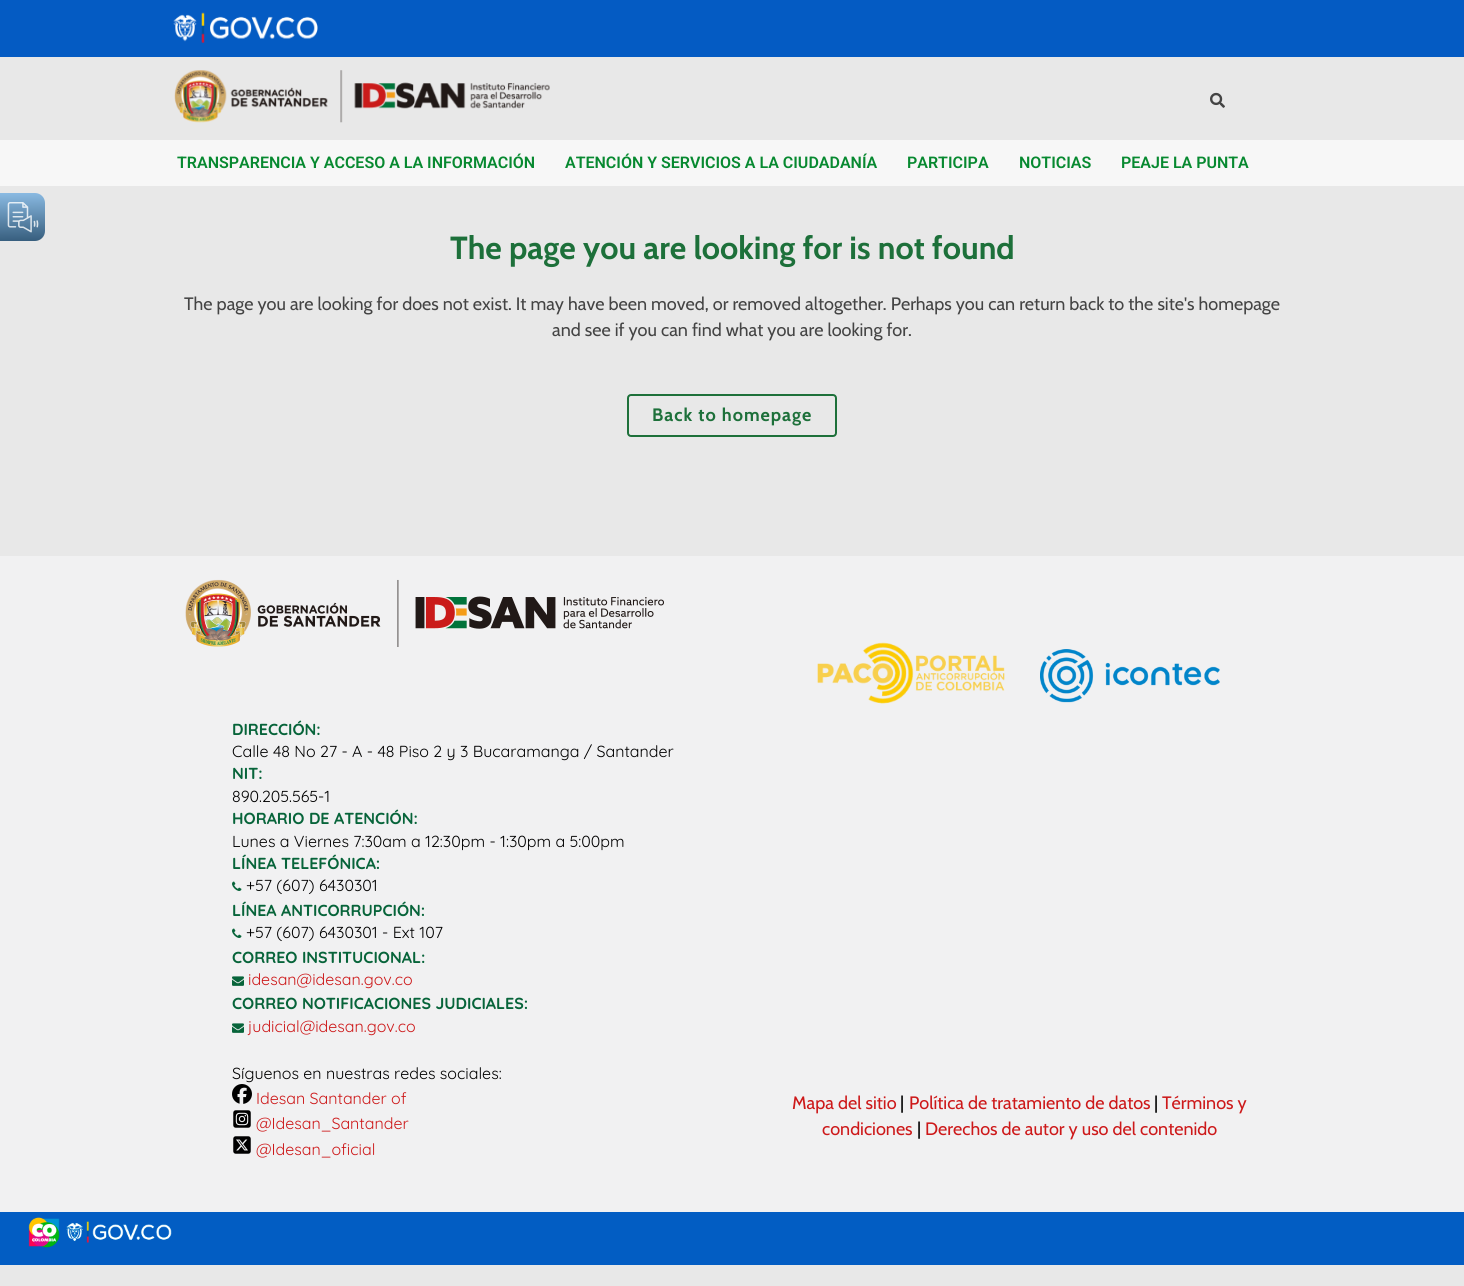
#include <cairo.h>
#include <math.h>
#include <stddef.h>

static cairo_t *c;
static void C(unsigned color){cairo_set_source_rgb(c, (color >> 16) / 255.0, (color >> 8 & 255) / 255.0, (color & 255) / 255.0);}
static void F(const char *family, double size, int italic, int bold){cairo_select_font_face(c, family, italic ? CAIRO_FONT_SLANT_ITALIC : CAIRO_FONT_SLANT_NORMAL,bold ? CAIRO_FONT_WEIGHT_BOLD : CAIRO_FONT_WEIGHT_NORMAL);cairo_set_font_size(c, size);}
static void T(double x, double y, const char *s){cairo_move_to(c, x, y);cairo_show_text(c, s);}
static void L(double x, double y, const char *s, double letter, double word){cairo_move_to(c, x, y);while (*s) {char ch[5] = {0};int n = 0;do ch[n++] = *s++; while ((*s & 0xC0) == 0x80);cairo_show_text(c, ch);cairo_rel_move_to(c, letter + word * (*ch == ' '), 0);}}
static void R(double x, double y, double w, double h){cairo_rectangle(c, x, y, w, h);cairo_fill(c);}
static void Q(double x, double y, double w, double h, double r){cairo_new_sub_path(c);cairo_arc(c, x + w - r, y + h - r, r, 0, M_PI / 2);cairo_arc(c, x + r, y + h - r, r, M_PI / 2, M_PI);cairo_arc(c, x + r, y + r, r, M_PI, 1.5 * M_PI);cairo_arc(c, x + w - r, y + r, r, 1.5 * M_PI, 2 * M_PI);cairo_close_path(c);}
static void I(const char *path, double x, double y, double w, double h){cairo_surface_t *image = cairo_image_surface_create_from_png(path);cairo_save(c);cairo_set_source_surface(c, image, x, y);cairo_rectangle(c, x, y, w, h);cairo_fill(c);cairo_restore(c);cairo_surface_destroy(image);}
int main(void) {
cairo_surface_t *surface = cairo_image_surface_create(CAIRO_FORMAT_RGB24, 1464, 1286);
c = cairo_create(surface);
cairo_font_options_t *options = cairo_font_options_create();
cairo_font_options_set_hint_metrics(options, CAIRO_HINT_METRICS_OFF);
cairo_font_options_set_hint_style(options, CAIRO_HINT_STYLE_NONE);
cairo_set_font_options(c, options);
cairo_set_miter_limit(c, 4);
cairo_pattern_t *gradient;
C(0xe8e8e8);
cairo_paint(c);
gradient = cairo_pattern_create_linear(22,193,23,241);
cairo_pattern_add_color_stop_rgba(gradient,0,0.541,0.729,0.886,1);
cairo_pattern_add_color_stop_rgba(gradient,1,0.216,0.369,0.494,1);
cairo_set_source(c,gradient);
cairo_pattern_destroy(gradient);
cairo_new_path(c);
cairo_move_to(c,0,193);
cairo_line_to(c,35,193);
cairo_curve_to(c,40.5,193,45,197.5,45,203);
cairo_line_to(c,45,231);
cairo_curve_to(c,45,236.5,40.5,241,35,241);
cairo_line_to(c,0,241);
cairo_close_path(c);
cairo_fill(c);
I("1.png",7,202,32,31);
C(0x045bc3);
R(0,0,1464,57);
I("2.png",173,12,145,31);
I("3.png",174,70,376,53);
I("4.png",1210,92,15,16);
C(0xf7f7f7);
R(0,140,1464,46);
F("Roboto SemiBold",16,0,0);
C(0x078930);
T(177,168,"TRANSPARENCIA Y ACCESO A LA INFORMACIÓN");
T(565,168,"ATENCIÓN Y SERVICIOS A LA CIUDADANÍA");
T(907,168,"PARTICIPA");
T(1019,168,"NOTICIAS");
T(1121,168,"PEAJE LA PUNTA");
F("Cabin",32,0,1);
C(0x1d703a);
T(450,259,"The page you are looking for is not found");
F("Cabin",18,0,0);
C(0x444444);
T(184,310,"The page you are looking for does not exist. It may have been moved, or removed altogether. Perhaps you can return back to the site's homepage");
T(552,336,"and see if you can find what you are looking for.");
Q(628,395,208,41,3);
C(0x1d703a);
cairo_stroke(c);
F("Cabin",18,0,1);
L(652,421,"Back to homepage",1,0);
C(0xf1f1f2);
R(0,556,1464,656);
I("5.png",185,579,479,68);
F("Quicksand",16,0,1);
C(0x07643a);
T(232,735,"DIRECCIÓN:");
F("Quicksand",16,0,0);
C(0x000000);
T(232,757,"Calle 48 No 27 - A - 48 Piso 2 y 3 Bucaramanga / Santander");
F("Quicksand",16,0,1);
C(0x07643a);
T(232,779,"NIT:");
F("Quicksand",16,0,0);
C(0x000000);
T(232,802,"890.205.565-1");
F("Quicksand",16,0,1);
C(0x07643a);
T(232,824,"HORARIO DE ATENCIÓN:");
F("Quicksand",16,0,0);
C(0x000000);
T(232,847,"Lunes a Viernes 7:30am a 12:30pm - 1:30pm a 5:00pm");
F("Quicksand",16,0,1);
C(0x07643a);
T(232,869,"LÍNEA TELEFÓNICA:");
I("6.png",232,881,10,10);
F("Quicksand",16,0,0);
C(0x000000);
T(246,891,"+57 (607) 6430301");
F("Quicksand",16,0,1);
C(0x07643a);
T(232,916,"LÍNEA ANTICORRUPCIÓN:");
I("6.png",232,928,10,10);
F("Quicksand",16,0,0);
C(0x000000);
T(246,938,"+57 (607) 6430301 - Ext 107");
F("Quicksand",16,0,1);
C(0x07643a);
T(232,963,"CORREO INSTITUCIONAL:");
I("7.png",232,976,12,10);
F("Quicksand",16,0,0);
C(0xcd191a);
T(248,985,"idesan@idesan.gov.co");
F("Quicksand",16,0,1);
C(0x07643a);
T(232,1009,"CORREO NOTIFICACIONES JUDICIALES:");
I("7.png",232,1023,12,10);
F("Quicksand",16,0,0);
C(0xcd191a);
T(248,1032,"judicial@idesan.gov.co");
C(0x000000);
T(232,1079,"Síguenos en nuestras redes sociales:");
I("8.png",232,1084,20,20);
C(0xcd191a);
T(256,1104,"Idesan Santander of");
I("9.png",233,1110,18,18);
T(256,1129,"@Idesan_Santander");
I("10.png",233,1136,18,18);
T(256,1155,"@Idesan_oficial");
I("11.png",817,642,188,62);
I("12.png",1040,649,180,54);
F("Cabin",18,0,0);
T(792,1109,"Mapa del sitio");
C(0x000000);
T(900,1109,"|");
C(0xcd191a);
T(909,1109,"Política de tratamiento de datos");
C(0x000000);
T(1154,1109,"|");
C(0xcd191a);
T(1162,1109,"Términos y");
T(822,1135,"condiciones");
C(0x000000);
T(917,1135,"|");
C(0xcd191a);
T(925,1135,"Derechos de autor y uso del contenido");
C(0x025dc3);
R(0,1212,1464,53);
I("13.png",28,1217,144,31);
cairo_surface_write_to_png(surface, "o.png");
cairo_font_options_destroy(options);
cairo_destroy(c);
cairo_surface_destroy(surface);
return 0;
}
